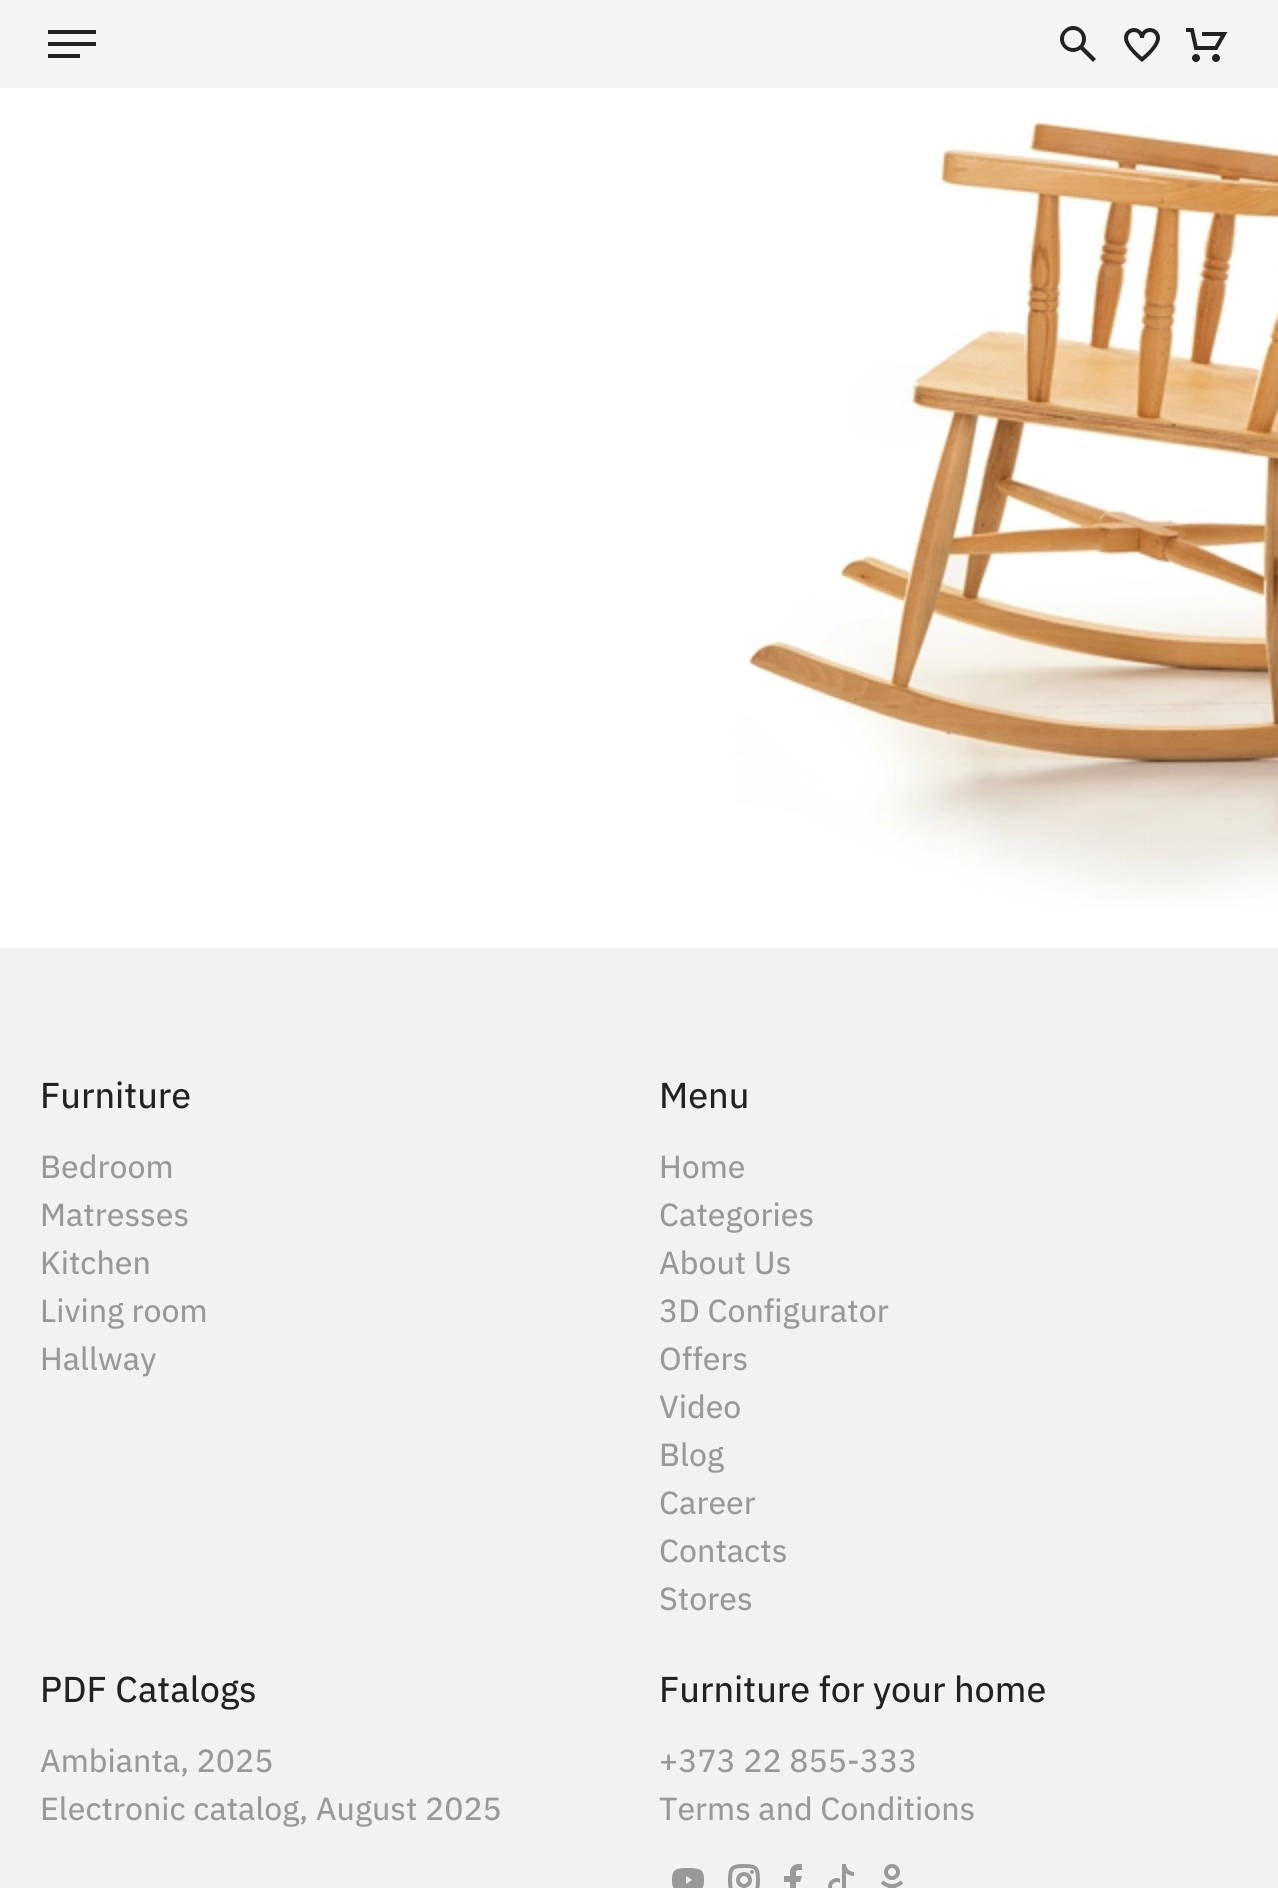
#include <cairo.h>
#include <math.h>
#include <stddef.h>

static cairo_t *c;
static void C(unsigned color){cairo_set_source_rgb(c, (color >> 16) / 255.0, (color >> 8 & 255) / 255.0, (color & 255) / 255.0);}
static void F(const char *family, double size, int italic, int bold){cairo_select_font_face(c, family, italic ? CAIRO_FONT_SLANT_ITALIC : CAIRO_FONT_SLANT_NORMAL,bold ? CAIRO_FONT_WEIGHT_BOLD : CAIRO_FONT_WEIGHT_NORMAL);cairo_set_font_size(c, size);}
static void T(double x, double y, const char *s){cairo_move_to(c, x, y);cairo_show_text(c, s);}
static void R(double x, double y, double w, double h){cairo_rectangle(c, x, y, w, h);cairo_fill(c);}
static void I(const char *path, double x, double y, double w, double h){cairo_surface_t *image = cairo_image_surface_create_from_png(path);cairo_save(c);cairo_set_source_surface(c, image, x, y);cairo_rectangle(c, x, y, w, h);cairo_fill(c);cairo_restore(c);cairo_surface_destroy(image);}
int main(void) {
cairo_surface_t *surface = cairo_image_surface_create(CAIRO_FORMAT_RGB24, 1278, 1888);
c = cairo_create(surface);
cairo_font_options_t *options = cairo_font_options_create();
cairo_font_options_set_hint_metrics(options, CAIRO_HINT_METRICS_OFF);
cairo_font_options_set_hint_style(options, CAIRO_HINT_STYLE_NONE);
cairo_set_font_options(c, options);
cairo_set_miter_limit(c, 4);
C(0xffffff);
cairo_paint(c);
C(0xf4f4f4);
R(0,0,1278,88);
C(0x222222);
R(48,42,48,4);
R(48,30,48,4);
R(48,54,32,4);
cairo_new_path(c);
cairo_move_to(c,1096,59);
cairo_line_to(c,1083.5,46.5);
cairo_curve_to(c,1092.5,34,1075.5,18.5,1064,30);
cairo_curve_to(c,1052.5,41,1068,58.5,1080.5,49.5);
cairo_line_to(c,1093,62);
cairo_close_path(c);
cairo_move_to(c,1064,39);
cairo_curve_to(c,1064,27,1082,27,1082,39);
cairo_curve_to(c,1082,51,1064,51,1064,39);
cairo_close_path(c);
cairo_fill(c);
I("1.png",1124,28,36,34);
I("2.png",1186,28,42,34);
I("3.png",735,121,543,786);
C(0xf2f2f2);
R(0,948,1278,940);
F("IBM Plex Sans",36,0,0);
C(0x222222);
T(40,1108,"Furniture");
F("IBM Plex Sans",32,0,0);
C(0x999999);
T(40,1178,"Bedroom");
T(40,1226,"Matresses");
T(40,1274,"Kitchen");
T(40,1322,"Living room");
T(40,1370,"Hallway");
F("IBM Plex Sans",36,0,0);
C(0x222222);
T(659,1108,"Menu");
F("IBM Plex Sans",32,0,0);
C(0x999999);
T(659,1178,"Home");
T(659,1226,"Categories");
T(659,1274,"About Us");
T(659,1322,"3D Configurator");
T(659,1370,"Offers");
T(659,1418,"Video");
T(659,1466,"Blog");
T(659,1514,"Career");
T(659,1562,"Contacts");
T(659,1610,"Stores");
F("IBM Plex Sans",36,0,0);
C(0x222222);
T(40,1702,"PDF Catalogs");
F("IBM Plex Sans",32,0,0);
C(0x999999);
T(40,1772,"Ambianta, 2025");
T(40,1820,"Electronic catalog, August 2025");
F("IBM Plex Sans",36,0,0);
C(0x222222);
T(659,1702,"Furniture for your home");
F("IBM Plex Sans",32,0,0);
C(0x999999);
T(659,1772,"+373 22 855-333");
T(659,1820,"Terms and Conditions");
I("4.png",672,1868,32,20);
I("5.png",728,1864,32,24);
I("6.png",784,1864,18,24);
I("7.png",828,1864,26,24);
I("8.png",880,1864,24,24);
cairo_surface_write_to_png(surface, "o.png");
cairo_font_options_destroy(options);
cairo_destroy(c);
cairo_surface_destroy(surface);
return 0;
}
